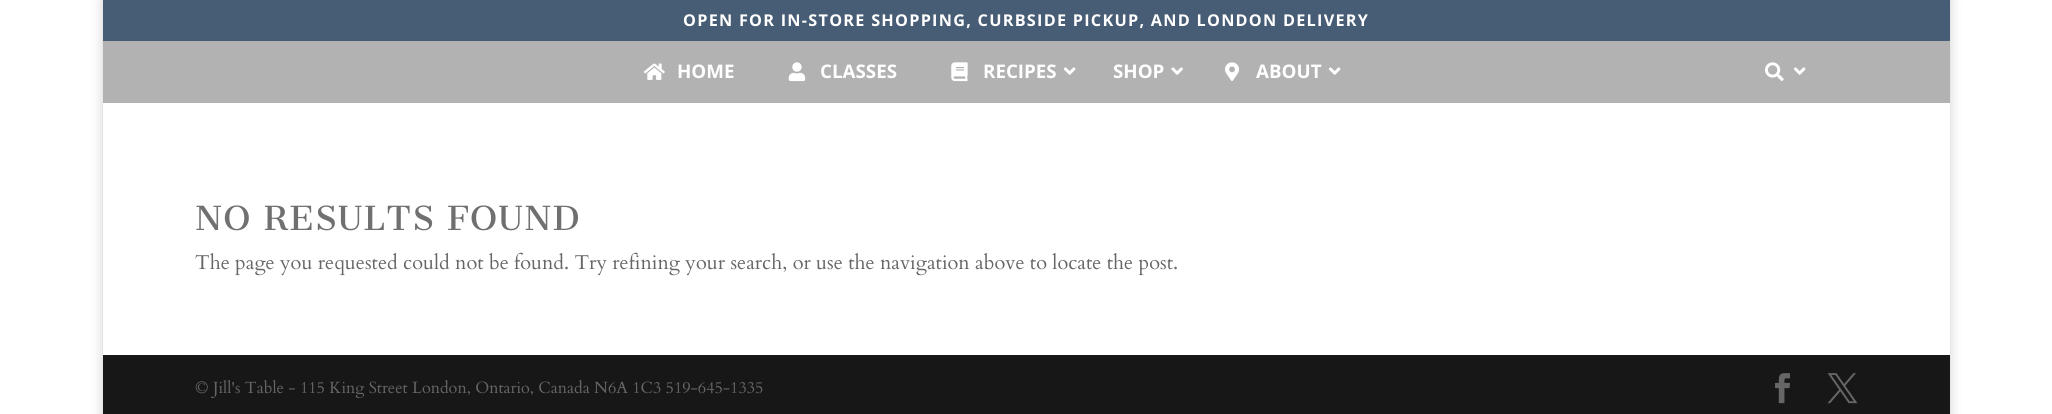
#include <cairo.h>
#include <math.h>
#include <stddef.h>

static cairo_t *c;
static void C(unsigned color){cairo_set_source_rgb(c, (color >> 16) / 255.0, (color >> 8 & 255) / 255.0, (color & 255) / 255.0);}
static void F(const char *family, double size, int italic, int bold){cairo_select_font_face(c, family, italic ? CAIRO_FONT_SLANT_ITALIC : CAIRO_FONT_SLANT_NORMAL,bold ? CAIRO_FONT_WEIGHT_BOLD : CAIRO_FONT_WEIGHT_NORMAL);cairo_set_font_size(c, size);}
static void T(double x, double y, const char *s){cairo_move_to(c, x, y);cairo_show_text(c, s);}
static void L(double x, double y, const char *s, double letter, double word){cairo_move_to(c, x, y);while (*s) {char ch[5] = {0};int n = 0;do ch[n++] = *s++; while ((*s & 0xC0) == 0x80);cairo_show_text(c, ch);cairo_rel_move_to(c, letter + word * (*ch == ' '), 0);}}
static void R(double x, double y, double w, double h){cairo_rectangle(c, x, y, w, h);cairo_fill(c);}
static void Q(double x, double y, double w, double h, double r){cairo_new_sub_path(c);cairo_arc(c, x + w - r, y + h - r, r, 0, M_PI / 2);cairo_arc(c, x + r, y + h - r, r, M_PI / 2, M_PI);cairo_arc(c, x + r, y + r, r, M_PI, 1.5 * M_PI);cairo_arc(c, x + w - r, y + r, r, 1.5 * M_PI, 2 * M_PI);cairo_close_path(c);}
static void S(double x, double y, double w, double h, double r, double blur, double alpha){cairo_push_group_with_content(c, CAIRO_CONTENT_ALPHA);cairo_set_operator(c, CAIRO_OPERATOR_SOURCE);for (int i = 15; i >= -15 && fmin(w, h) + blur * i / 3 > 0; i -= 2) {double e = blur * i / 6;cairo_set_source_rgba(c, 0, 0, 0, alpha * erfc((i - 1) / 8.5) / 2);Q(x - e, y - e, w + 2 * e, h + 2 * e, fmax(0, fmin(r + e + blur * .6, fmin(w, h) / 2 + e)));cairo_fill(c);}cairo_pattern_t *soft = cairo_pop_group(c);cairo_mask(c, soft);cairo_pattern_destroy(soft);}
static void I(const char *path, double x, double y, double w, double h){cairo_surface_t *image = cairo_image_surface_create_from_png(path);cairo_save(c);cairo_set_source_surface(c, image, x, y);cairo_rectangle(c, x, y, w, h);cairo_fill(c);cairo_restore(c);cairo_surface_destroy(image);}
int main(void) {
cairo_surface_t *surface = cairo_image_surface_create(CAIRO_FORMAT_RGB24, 2052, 414);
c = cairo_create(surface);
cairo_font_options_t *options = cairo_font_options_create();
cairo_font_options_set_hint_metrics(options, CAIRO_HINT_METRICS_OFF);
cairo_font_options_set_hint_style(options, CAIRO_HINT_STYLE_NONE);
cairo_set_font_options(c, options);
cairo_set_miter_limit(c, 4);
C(0xffffff);
cairo_paint(c);
cairo_save(c);
cairo_set_fill_rule(c,CAIRO_FILL_RULE_EVEN_ODD);
cairo_new_path(c);
cairo_move_to(c,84,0);
cairo_line_to(c,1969,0);
cairo_line_to(c,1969,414);
cairo_line_to(c,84,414);
cairo_close_path(c);
cairo_move_to(c,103,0);
cairo_line_to(c,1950,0);
cairo_line_to(c,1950,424);
cairo_line_to(c,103,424);
cairo_close_path(c);
cairo_clip(c);
C(0x000000);
S(103,0,1847,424,0,6,.2);
cairo_restore(c);
C(0x475c75);
R(103,0,1847,41);
F("Open Sans",16.25,0,1);
C(0xffffff);
L(683,26,"OPEN FOR IN-STORE SHOPPING, CURBSIDE PICKUP, AND LONDON DELIVERY",1.25,0);
C(0xb2b2b2);
R(103,41,1847,62);
I("1.png",643,63,22,17);
F("Open Sans",18.75,0,1);
C(0xffffff);
T(677,78,"HOME");
I("2.png",788,62,18,20);
T(820,78,"CLASSES");
I("3.png",951,62,17,20);
T(983,78,"RECIPES");
I("4.png",1063,67,13,8);
T(1113,78,"SHOP");
I("5.png",1171,67,12,8);
I("6.png",1225,62,14,19);
T(1256,78,"ABOUT");
I("4.png",1328,67,13,8);
I("7.png",1765,62,19,19);
I("4.png",1793,67,13,8);
F("Cantata One",32.5,0,0);
C(0x707070);
L(195,230,"NO RESULTS FOUND",1.25,0);
F("Cardo",20,0,0);
C(0x666666);
T(195,269,"The page you requested could not be found. Try refining your search, or use the navigation above to locate the post.");
C(0x171717);
R(103,355,1847,59);
F("Cardo",16.25,0,0);
C(0x666666);
T(195,393,"© Jill's Table - 115 King Street London, Ontario, Canada N6A 1C3 519-645-1335");
I("8.png",1775,373,15,31);
I("9.png",1827,373,31,31);
cairo_surface_write_to_png(surface, "o.png");
cairo_font_options_destroy(options);
cairo_destroy(c);
cairo_surface_destroy(surface);
return 0;
}
